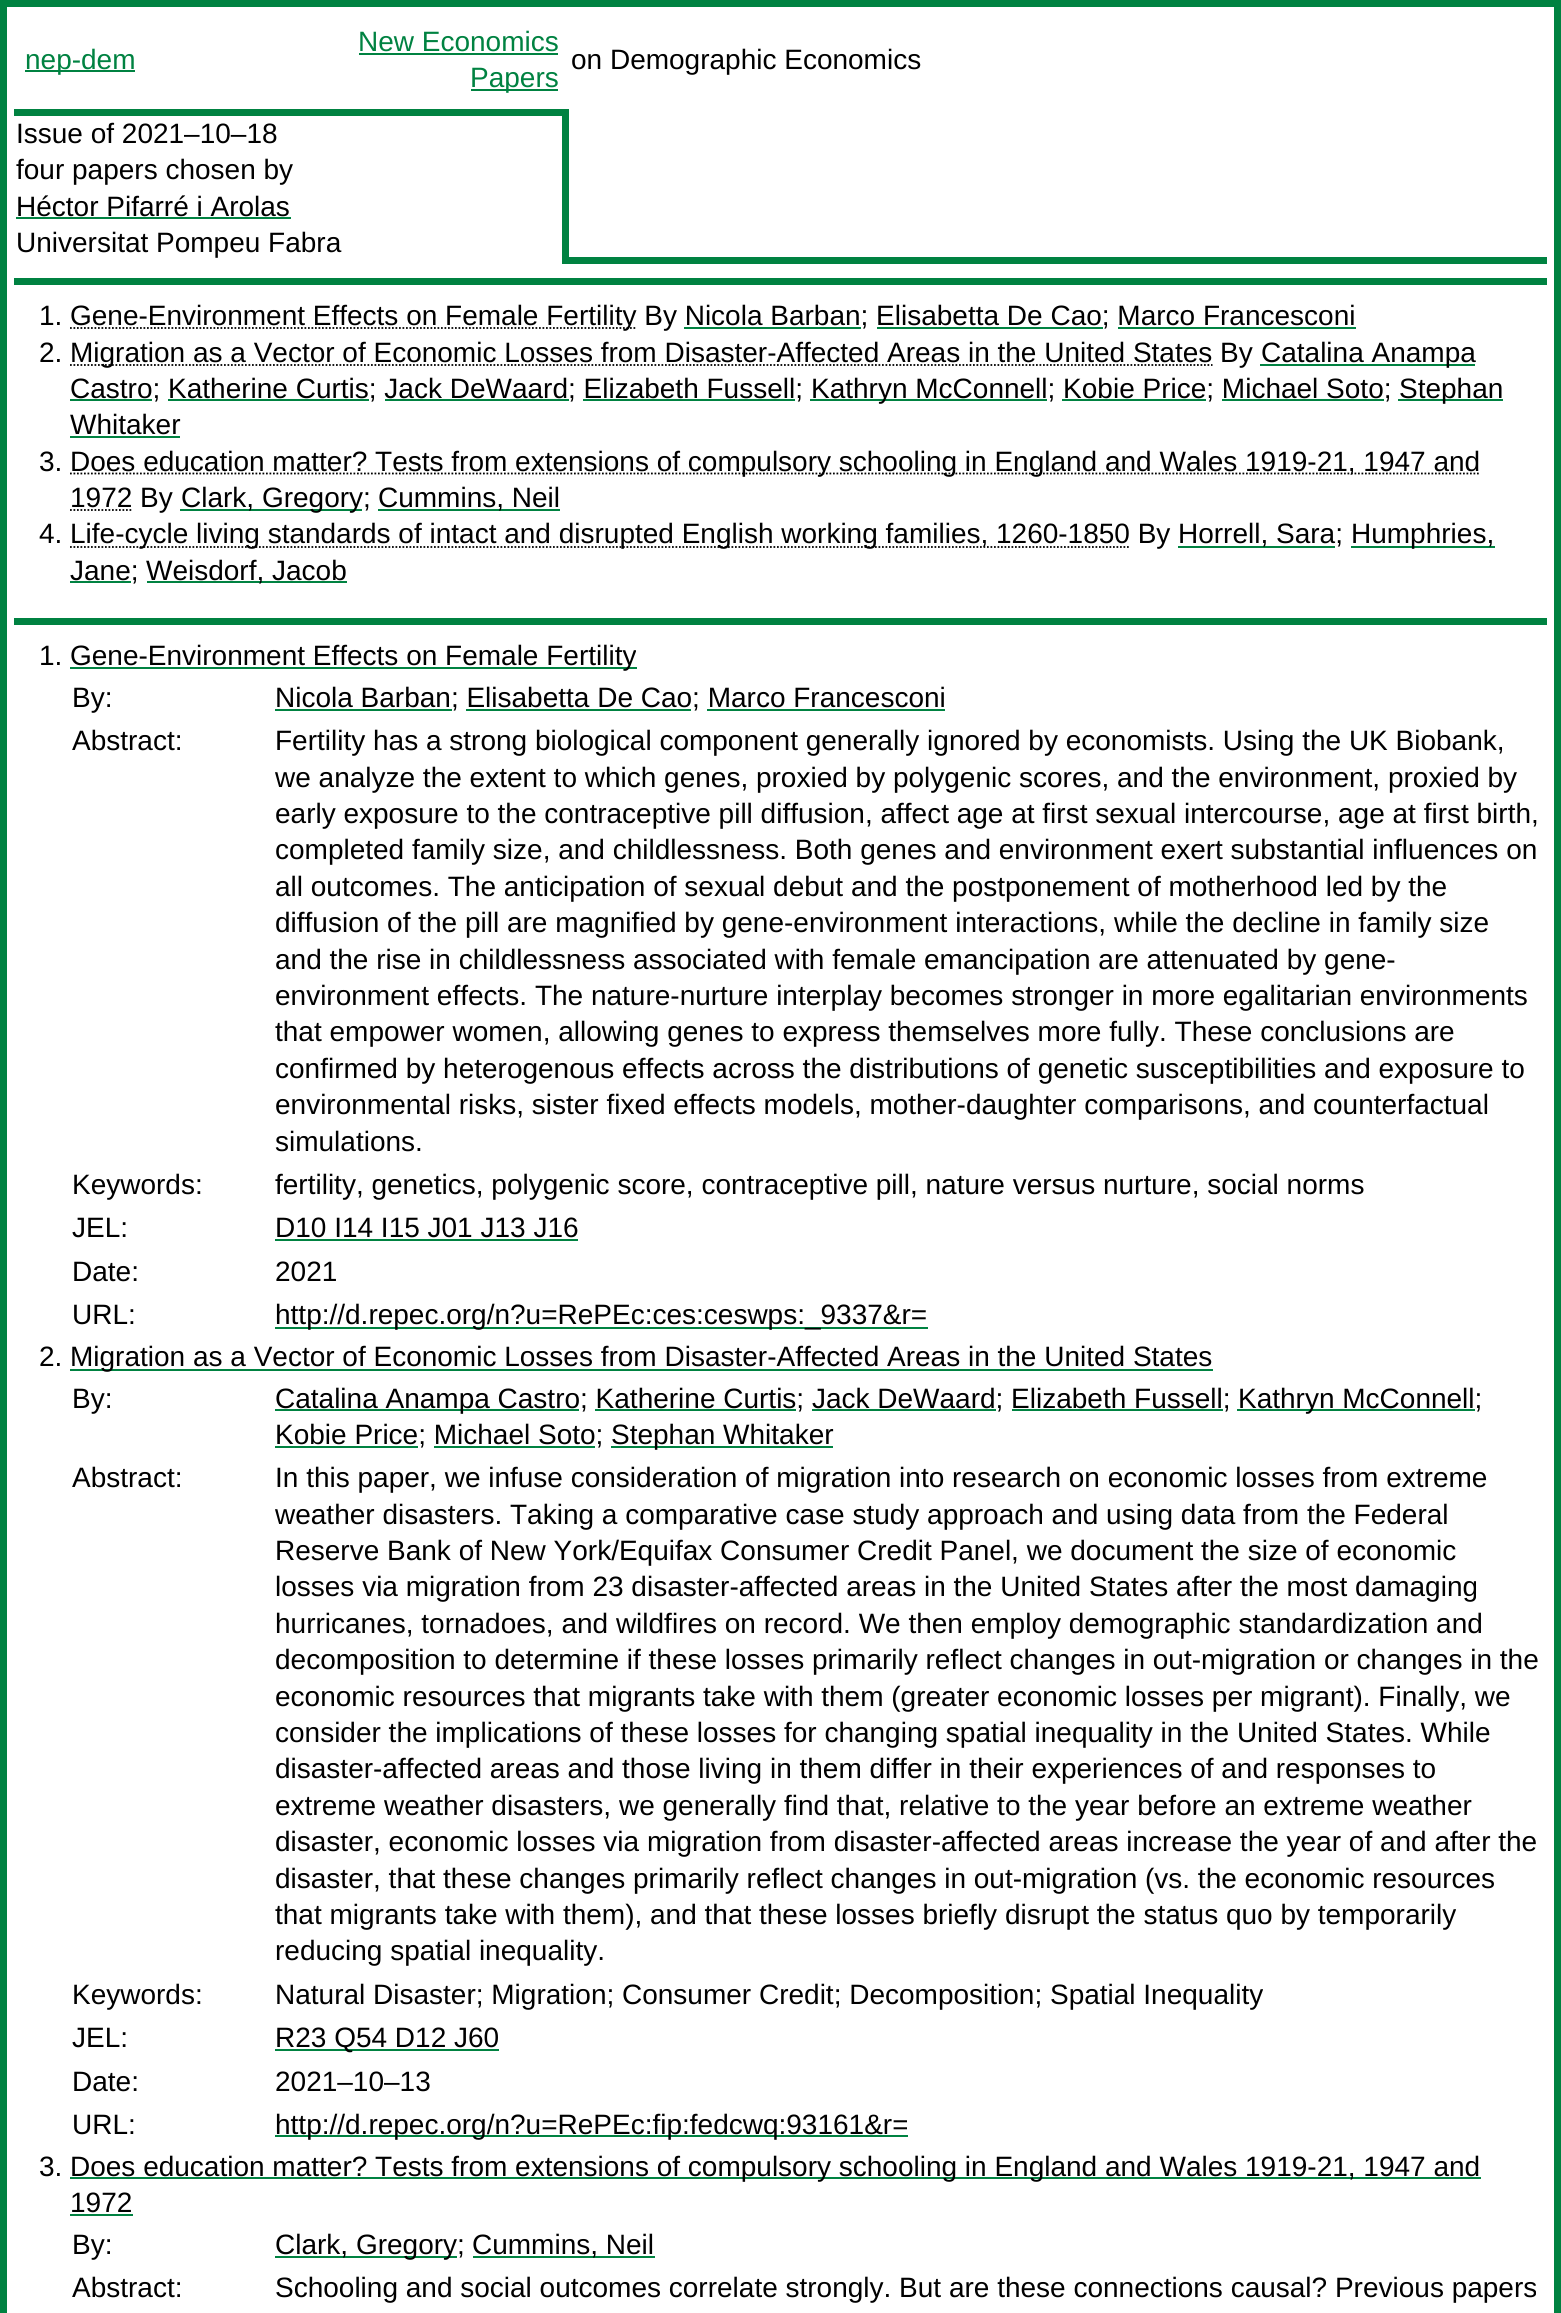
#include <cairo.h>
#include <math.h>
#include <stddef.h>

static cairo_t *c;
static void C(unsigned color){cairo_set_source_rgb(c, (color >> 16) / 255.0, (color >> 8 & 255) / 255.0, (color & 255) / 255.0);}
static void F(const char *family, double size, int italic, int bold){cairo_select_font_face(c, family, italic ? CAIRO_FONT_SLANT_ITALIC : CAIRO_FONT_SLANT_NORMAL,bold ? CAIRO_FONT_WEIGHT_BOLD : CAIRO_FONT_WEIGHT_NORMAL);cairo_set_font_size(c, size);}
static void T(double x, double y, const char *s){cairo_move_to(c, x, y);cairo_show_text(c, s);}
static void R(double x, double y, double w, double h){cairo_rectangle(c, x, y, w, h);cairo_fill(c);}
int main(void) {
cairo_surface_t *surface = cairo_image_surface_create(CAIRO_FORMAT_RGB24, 1561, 2313);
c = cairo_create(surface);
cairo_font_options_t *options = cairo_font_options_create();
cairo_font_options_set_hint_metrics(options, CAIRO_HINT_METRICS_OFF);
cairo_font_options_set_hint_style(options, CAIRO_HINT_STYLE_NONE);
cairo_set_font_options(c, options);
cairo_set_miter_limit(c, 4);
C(0xffffff);
cairo_paint(c);
cairo_rectangle(c,3.5,3.5,1554,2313);
C(0x008241);
cairo_set_line_width(c,7);
cairo_stroke(c);
R(25,70,110,2);
F("Liberation Sans",28,0,0);
T(25,69,"nep-dem");
T(358,51,"New Economics");
R(359,53,199,2);
R(471,89,87,2);
T(470,87,"Papers");
C(0x000000);
T(571,69,"on Demographic Economics");
C(0x008241);
R(14,109,551,7);
R(562,109,3,155);
C(0x000000);
T(16,143,"Issue of 2021‒10‒18");
T(16,179,"four papers chosen by");
T(16,216,"Héctor Pifarré i Arolas");
C(0x008241);
R(16,217,275,2);
C(0x000000);
T(16,252,"Universitat Pompeu Fabra");
C(0x008241);
R(565,257,982,7);
R(565,109,4,155);
R(14,278,1533,7);
C(0x000000);
T(39,325,"1.");
cairo_new_path(c);
cairo_move_to(c,70,328);
cairo_line_to(c,636.5,328);
cairo_set_line_width(c,1.8);
cairo_set_dash(c,(double[]){1.75,1.75},2,0);
cairo_stroke(c);
T(70,325,"Gene-Environment Effects on Female Fertility By Nicola Barban; Elisabetta De Cao; Marco Francesconi");
C(0x008241);
R(684,327,177,2);
R(877,327,226,2);
R(1118,327,238,2);
C(0x000000);
T(39,362,"2.");
cairo_new_path(c);
cairo_move_to(c,70,365);
cairo_line_to(c,1212.5,365);
cairo_stroke(c);
T(70,362,"Migration as a Vector of Economic Losses from Disaster-Affected Areas in the United States By");
C(0x008241);
R(1260,364,215,2);
C(0x000000);
T(1261,362,"Catalina Anampa");
C(0x008241);
R(70,399,82,2);
C(0x000000);
T(70,398,"Castro; Katherine Curtis; Jack DeWaard; Elizabeth Fussell;");
C(0x008241);
R(810,399,237,2);
C(0x000000);
T(811,398,"Kathryn McConnell; Kobie Price; Michael Soto;");
C(0x008241);
R(1398,399,105,2);
C(0x000000);
T(1399,398,"Stephan");
C(0x008241);
R(168,399,201,2);
R(385,399,184,2);
R(583,399,212,2);
R(1062,399,144,2);
R(1222,399,162,2);
C(0x000000);
T(70,434,"Whitaker");
C(0x008241);
R(70,436,110,2);
C(0x000000);
T(39,471,"3.");
cairo_new_path(c);
cairo_move_to(c,70,473.5);
cairo_line_to(c,1480,473.5);
cairo_stroke(c);
T(70,471,"Does education matter? Tests from extensions of compulsory schooling in England and Wales 1919-21, 1947 and");
cairo_new_path(c);
cairo_move_to(c,70,510);
cairo_line_to(c,132.5,510);
cairo_stroke(c);
T(70,507,"1972 By");
C(0x008241);
R(180,509,182,2);
C(0x000000);
T(181,507,"Clark, Gregory;");
C(0x008241);
R(378,509,182,2);
C(0x000000);
T(378,507,"Cummins, Neil");
T(39,543,"4.");
cairo_new_path(c);
cairo_move_to(c,70,547);
cairo_line_to(c,1130,547);
cairo_stroke(c);
T(70,543,"Life-cycle living standards of intact and disrupted English working families, 1260-1850 By");
C(0x008241);
R(1178,546,157,2);
C(0x000000);
T(1178,543,"Horrell, Sara;");
C(0x008241);
R(1351,546,144,2);
C(0x000000);
T(1351,543,"Humphries,");
C(0x008241);
R(70,581,61,2);
C(0x000000);
T(70,580,"Jane;");
C(0x008241);
R(147,581,200,2);
C(0x000000);
T(146,580,"Weisdorf, Jacob");
C(0x008241);
R(14,618,1533,7);
C(0x000000);
T(39,665,"1.");
C(0x008241);
R(70,667,567,2);
C(0x000000);
T(70,665,"Gene-Environment Effects on Female Fertility");
T(72,707,"By:");
C(0x008241);
R(275,709,177,2);
C(0x000000);
T(275,707,"Nicola Barban; Elisabetta De Cao; Marco Francesconi");
C(0x008241);
R(466,709,225,2);
R(707,709,238,2);
C(0x000000);
T(72,750,"Abstract:");
T(275,750,"Fertility has a strong biological component generally ignored by economists. Using the UK Biobank,");
T(275,787,"we analyze the extent to which genes, proxied by polygenic scores, and the environment, proxied by");
T(275,823,"early exposure to the contraceptive pill diffusion, affect age at first sexual intercourse, age at first birth,");
T(275,859,"completed family size, and childlessness. Both genes and environment exert substantial influences on");
T(275,896,"all outcomes. The anticipation of sexual debut and the postponement of motherhood led by the");
T(275,932,"diffusion of the pill are magnified by gene-environment interactions, while the decline in family size");
T(275,969,"and the rise in childlessness associated with female emancipation are attenuated by gene-");
T(275,1005,"environment effects. The nature-nurture interplay becomes stronger in more egalitarian environments");
T(275,1041,"that empower women, allowing genes to express themselves more fully. These conclusions are");
T(275,1078,"confirmed by heterogenous effects across the distributions of genetic susceptibilities and exposure to");
T(275,1114,"environmental risks, sister fixed effects models, mother-daughter comparisons, and counterfactual");
T(275,1151,"simulations.");
T(72,1194,"Keywords:");
T(275,1194,"fertility, genetics, polygenic score, contraceptive pill, nature versus nurture, social norms");
T(72,1237,"JEL:");
T(275,1237,"D10 I14 I15 J01 J13 J16");
C(0x008241);
R(275,1239,303,2);
C(0x000000);
T(72,1281,"Date:");
T(275,1281,"2021");
T(72,1324,"URL:");
C(0x008241);
R(275,1327,653,2);
C(0x000000);
T(275,1324,"http://d.repec.org/n?u=RePEc:ces:ceswps:_9337&r=");
T(39,1366,"2.");
C(0x008241);
R(70,1369,1143,2);
C(0x000000);
T(70,1366,"Migration as a Vector of Economic Losses from Disaster-Affected Areas in the United States");
T(72,1408,"By:");
C(0x008241);
R(275,1409,304,2);
C(0x000000);
T(275,1408,"Catalina Anampa Castro; Katherine Curtis; Jack DeWaard; Elizabeth Fussell;");
C(0x008241);
R(1237,1409,238,2);
C(0x000000);
T(1238,1408,"Kathryn McConnell;");
C(0x008241);
R(595,1409,201,2);
R(812,1409,184,2);
R(1012,1409,211,2);
R(275,1446,143,2);
C(0x000000);
T(275,1444,"Kobie Price; Michael Soto;");
C(0x008241);
R(611,1446,222,2);
C(0x000000);
T(611,1444,"Stephan Whitaker");
C(0x008241);
R(434,1446,161,2);
C(0x000000);
T(72,1487,"Abstract:");
T(275,1487,"In this paper, we infuse consideration of migration into research on economic losses from extreme");
T(275,1524,"weather disasters. Taking a comparative case study approach and using data from the Federal");
T(275,1560,"Reserve Bank of New York/Equifax Consumer Credit Panel, we document the size of economic");
T(275,1596,"losses via migration from 23 disaster-affected areas in the United States after the most damaging");
T(275,1633,"hurricanes, tornadoes, and wildfires on record. We then employ demographic standardization and");
T(275,1669,"decomposition to determine if these losses primarily reflect changes in out-migration or changes in the");
T(275,1706,"economic resources that migrants take with them (greater economic losses per migrant). Finally, we");
T(275,1742,"consider the implications of these losses for changing spatial inequality in the United States. While");
T(275,1778,"disaster-affected areas and those living in them differ in their experiences of and responses to");
T(275,1815,"extreme weather disasters, we generally find that, relative to the year before an extreme weather");
T(275,1851,"disaster, economic losses via migration from disaster-affected areas increase the year of and after the");
T(275,1888,"disaster, that these changes primarily reflect changes in out-migration (vs. the economic resources");
T(275,1924,"that migrants take with them), and that these losses briefly disrupt the status quo by temporarily");
T(275,1960,"reducing spatial inequality.");
T(72,2004,"Keywords:");
T(275,2004,"Natural Disaster; Migration; Consumer Credit; Decomposition; Spatial Inequality");
T(72,2047,"JEL:");
C(0x008241);
R(275,2049,224,2);
C(0x000000);
T(275,2047,"R23 Q54 D12 J60");
T(72,2091,"Date:");
T(275,2091,"2021–10–13");
T(72,2134,"URL:");
C(0x008241);
R(275,2135,633,2);
C(0x000000);
T(275,2134,"http://d.repec.org/n?u=RePEc:fip:fedcwq:93161&r=");
T(39,2176,"3.");
C(0x008241);
R(70,2177,1411,2);
C(0x000000);
T(70,2176,"Does education matter? Tests from extensions of compulsory schooling in England and Wales 1919-21, 1947 and");
T(70,2212,"1972");
C(0x008241);
R(70,2214,63,2);
C(0x000000);
T(72,2254,"By:");
C(0x008241);
R(275,2256,182,2);
C(0x000000);
T(275,2254,"Clark, Gregory;");
C(0x008241);
R(473,2256,182,2);
C(0x000000);
T(472,2254,"Cummins, Neil");
T(72,2297,"Abstract:");
T(275,2297,"Schooling and social outcomes correlate strongly. But are these connections causal? Previous papers");
cairo_surface_write_to_png(surface, "o.png");
cairo_font_options_destroy(options);
cairo_destroy(c);
cairo_surface_destroy(surface);
return 0;
}
